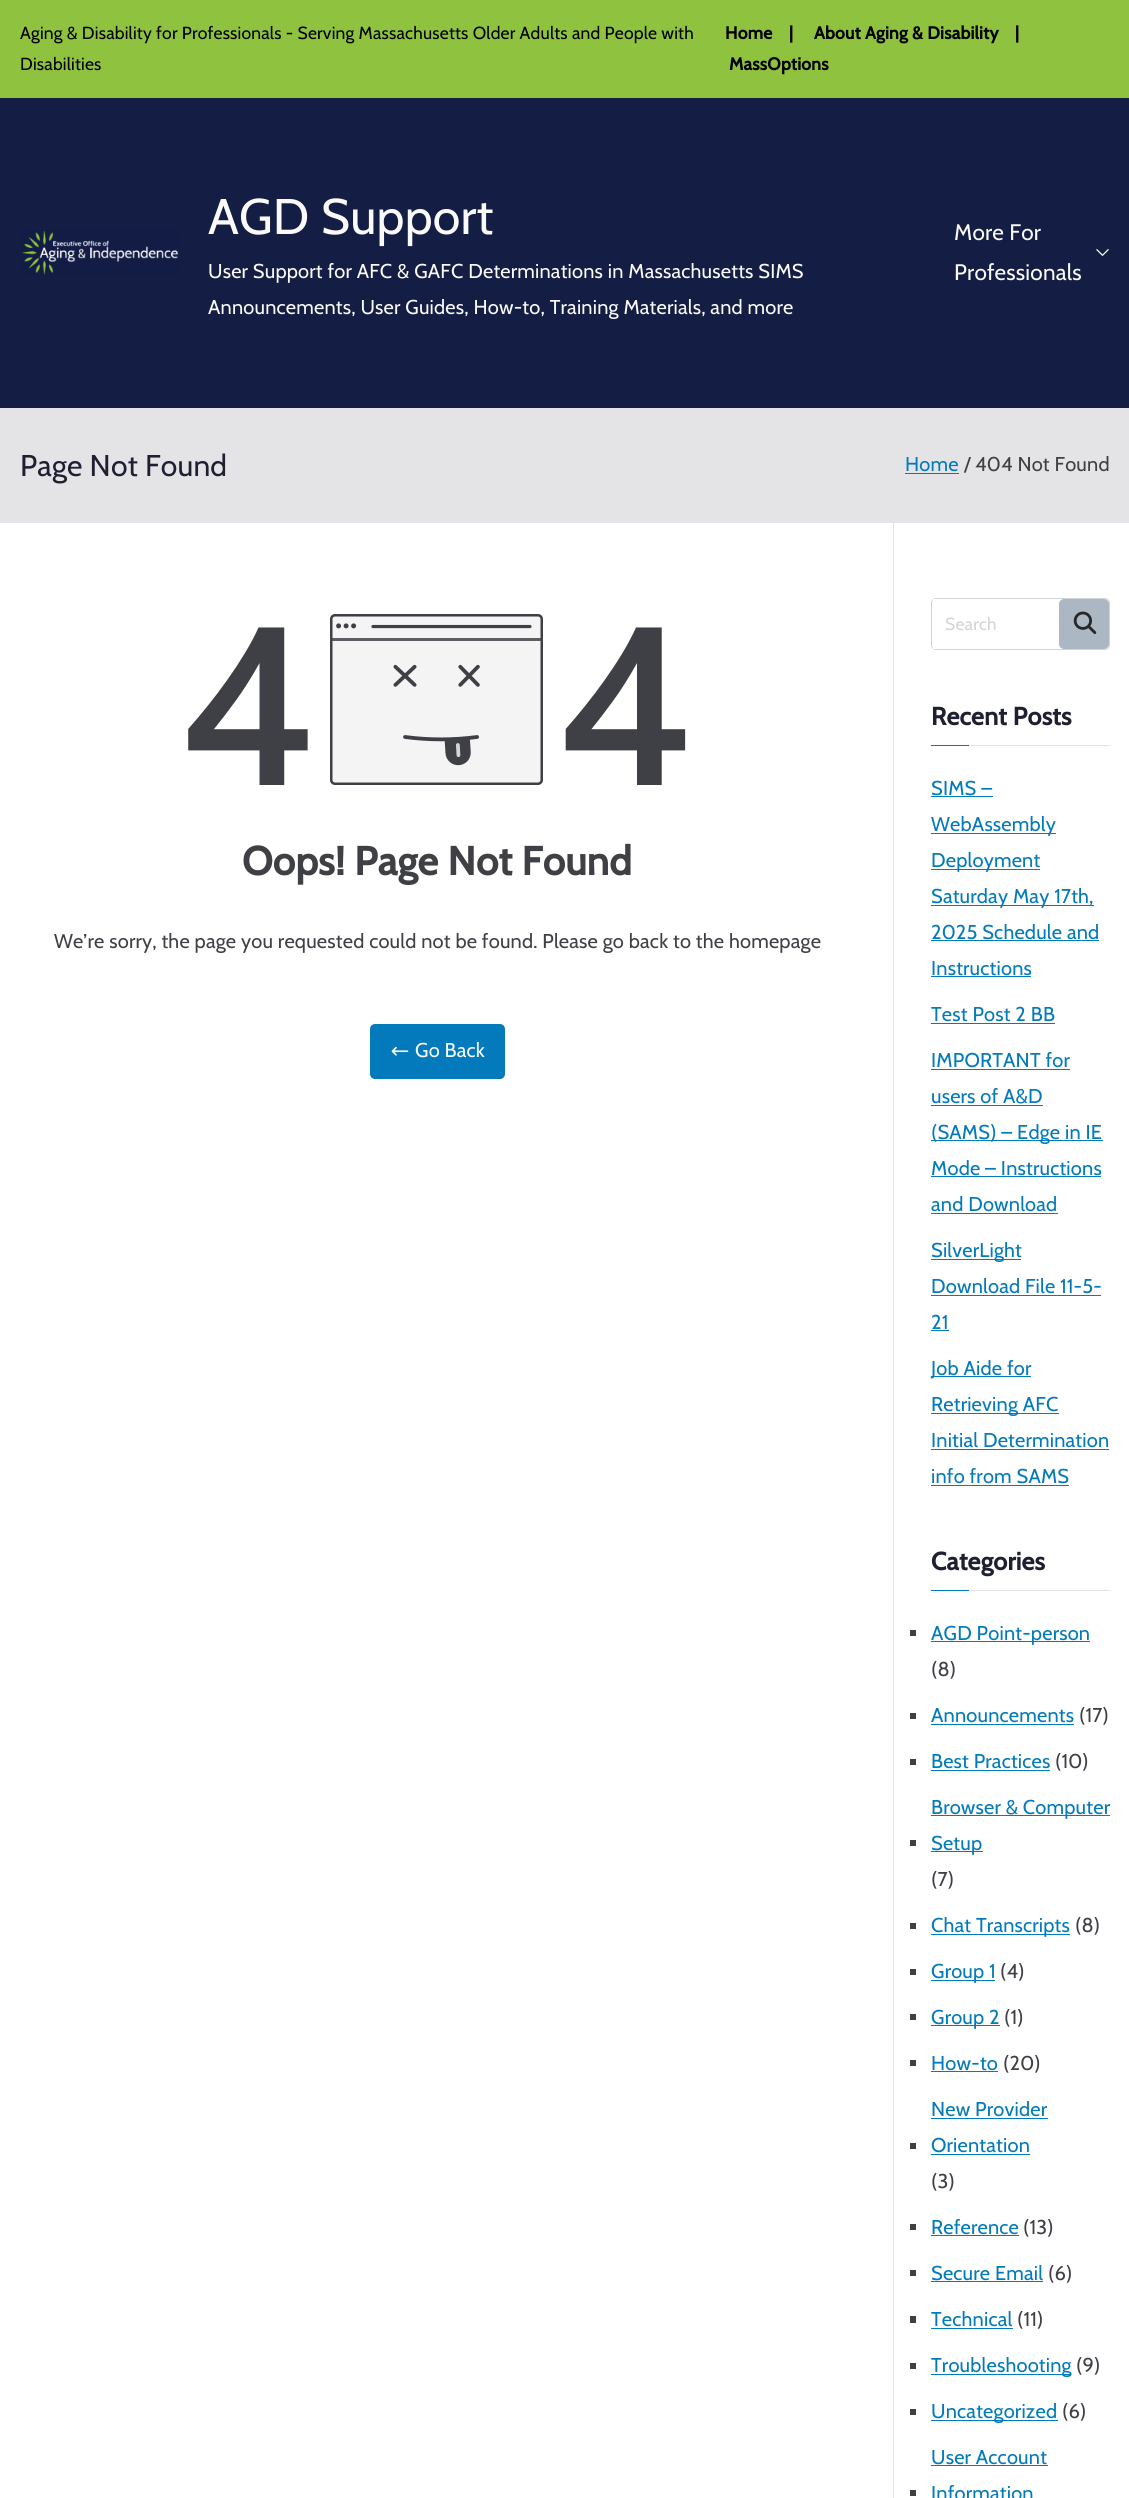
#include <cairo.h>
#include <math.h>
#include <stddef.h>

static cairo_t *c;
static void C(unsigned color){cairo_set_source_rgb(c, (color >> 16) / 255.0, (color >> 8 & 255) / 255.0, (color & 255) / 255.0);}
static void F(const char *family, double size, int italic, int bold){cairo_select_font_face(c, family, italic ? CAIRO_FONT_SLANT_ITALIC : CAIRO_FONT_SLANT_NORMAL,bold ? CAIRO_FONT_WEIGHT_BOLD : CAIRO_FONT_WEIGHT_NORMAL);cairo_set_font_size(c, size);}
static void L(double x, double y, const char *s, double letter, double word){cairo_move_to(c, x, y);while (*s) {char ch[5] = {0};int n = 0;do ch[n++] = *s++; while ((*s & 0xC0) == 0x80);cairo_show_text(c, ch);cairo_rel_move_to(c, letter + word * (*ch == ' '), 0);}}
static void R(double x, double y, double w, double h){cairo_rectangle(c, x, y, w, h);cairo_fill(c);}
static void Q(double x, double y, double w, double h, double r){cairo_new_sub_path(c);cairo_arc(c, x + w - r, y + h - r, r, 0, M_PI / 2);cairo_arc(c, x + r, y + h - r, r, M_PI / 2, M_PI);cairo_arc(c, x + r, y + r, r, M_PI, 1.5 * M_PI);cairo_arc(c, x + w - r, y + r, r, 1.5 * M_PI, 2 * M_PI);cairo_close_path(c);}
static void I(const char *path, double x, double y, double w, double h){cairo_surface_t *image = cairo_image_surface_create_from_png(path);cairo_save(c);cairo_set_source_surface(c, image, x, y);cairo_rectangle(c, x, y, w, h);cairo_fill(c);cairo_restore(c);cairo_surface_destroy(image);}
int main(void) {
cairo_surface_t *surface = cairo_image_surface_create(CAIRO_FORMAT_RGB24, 1129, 2498);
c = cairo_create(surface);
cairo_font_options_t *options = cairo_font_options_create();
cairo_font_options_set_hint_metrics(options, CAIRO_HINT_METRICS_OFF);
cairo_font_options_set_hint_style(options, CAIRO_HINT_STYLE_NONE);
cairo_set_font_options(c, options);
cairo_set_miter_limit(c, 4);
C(0xe4e4e7);
cairo_paint(c);
C(0x8ec23f);
R(0,0,1129,98);
F("Cabin",17.5,0,0);
C(0x000000);
L(20,39,"Aging & Disability for Professionals - Serving Massachusetts Older Adults and People with",.2,0);
L(20,70,"Disabilities",.2,0);
F("Cabin",17.5,0,1);
L(725,39,"Home",.2,0);
L(789,39,"|",.2,0);
L(814,39,"About Aging & Disability",.2,0);
L(1015,39,"|",.2,0);
L(729,70,"MassOptions",.2,0);
C(0x141d44);
R(0,98,1129,310);
I("1.png",22,230,157,45);
F("Cabin",50,0,0);
C(0xfafafa);
L(208,234,"AGD Support",.2,0);
F("Cabin",20,0,0);
L(208,278,"User Support for AFC & GAFC Determinations in Massachusetts SIMS",.2,0);
L(208,314,"Announcements, User Guides, How-to, Training Materials, and more",.2,0);
F("Cabin",22.5,0,0);
L(954,240,"More For",.2,0);
I("2.png",1096,249,13,7);
L(954,280,"Professionals",.2,0);
F("Cabin",30,0,0);
C(0x1f1f32);
L(20,476,"Page Not Found",.2,0);
F("Cabin",20,0,0);
C(0x027abb);
L(905,471,"Home",.2,0);
R(905,473,54,1);
C(0x3f3f46);
L(964,471,"/",.2,0);
L(975,471,"404 Not Found",.2,0);
C(0xffffff);
R(0,523,1129,1975);
I("3.png",188,614,498,171);
F("Cabin",40,0,1);
C(0x3f3f46);
L(242,875,"Oops! Page Not Found",.2,0);
F("Cabin",20,0,0);
L(54,948,"We’re sorry, the page you requested could not be found. Please go back to the homepage",.2,0);
C(0x027abb);
Q(370,1024,135,55,5);
cairo_fill(c);
I("4.png",391,1046,18,10);
C(0xfafafa);
L(415,1057,"Go Back",.2,0);
C(0xe4e4e7);
R(893,523,1,1975);
Q(931.5,598.5,178,51,4.5);
C(0xd4d4d8);
cairo_set_line_width(c,1);
cairo_stroke(c);
C(0xffffff);
R(933,599,2,50);
F("Cabin",17.5,0,0);
C(0xd4d4d8);
L(945,630,"Search",.2,0);
C(0xabb8c3);
Q(1059,599,50,50,5);
cairo_fill(c);
I("5.png",1073,611,24,23);
C(0xe4e4e7);
R(969,745,141,1);
F("Cabin",25,0,1);
C(0x1f1f32);
L(931,725,"Recent Posts",.2,0);
C(0x027abb);
R(931,745,38,1);
F("Cabin",20,0,0);
L(931,795,"SIMS –",.2,0);
R(931,796,62,1);
R(931,833,125,1);
L(931,831,"WebAssembly",.2,0);
R(931,869,109,1);
L(931,867,"Deployment",.2,0);
R(931,905,163,1);
L(931,903,"Saturday May 17th,",.2,0);
L(931,939,"2025 Schedule and",.2,0);
R(931,940,168,1);
L(931,975,"Instructions",.2,0);
R(931,976,100,1);
L(931,1021,"Test Post 2 BB",.2,0);
R(931,1023,124,1);
L(931,1067,"IMPORTANT for",.2,0);
R(931,1069,139,1);
L(931,1103,"users of A&D",.2,0);
R(931,1105,112,1);
R(931,1140,172,1);
L(931,1139,"(SAMS) – Edge in IE",.2,0);
L(931,1175,"Mode – Instructions",.2,0);
R(931,1176,170,1);
L(931,1211,"and Download",.2,0);
R(931,1213,127,1);
R(931,1259,90,1);
L(931,1257,"SilverLight",.2,0);
L(931,1293,"Download File 11-5-",.2,0);
R(931,1295,170,1);
L(931,1329,"21",.2,0);
R(931,1330,18,1);
R(931,1376,100,1);
L(931,1375,"Job Aide for",.2,0);
R(931,1413,128,1);
L(931,1411,"Retrieving AFC",.2,0);
L(931,1447,"Initial Determination",.2,0);
R(931,1449,178,1);
L(931,1483,"info from SAMS",.2,0);
R(931,1485,138,1);
C(0xe4e4e7);
R(969,1590,141,1);
F("Cabin",25,0,1);
C(0x1f1f32);
L(931,1570,"Categories",.2,0);
C(0x027abb);
R(931,1590,38,1);
C(0x3f3f46);
R(910,1630,6,6);
C(0x027abb);
R(931,1641,159,1);
F("Cabin",20,0,0);
L(931,1640,"AGD Point-person",.2,0);
C(0x3f3f46);
L(931,1676,"(8)",.2,0);
R(910,1713,6,6);
C(0x027abb);
L(931,1722,"Announcements",.2,0);
R(931,1724,143,1);
C(0x3f3f46);
L(1079,1722,"(17)",.2,0);
R(910,1759,6,6);
C(0x027abb);
L(931,1768,"Best Practices",.2,0);
R(931,1770,119,1);
C(0x3f3f46);
L(1055,1768,"(10)",.2,0);
R(910,1840,6,6);
C(0x027abb);
R(931,1815,179,1);
L(931,1814,"Browser & Computer",.2,0);
R(931,1851,52,1);
L(931,1850,"Setup",.2,0);
C(0x3f3f46);
L(931,1886,"(7)",.2,0);
R(910,1923,6,6);
C(0x027abb);
R(931,1934,139,1);
L(931,1932,"Chat Transcripts",.2,0);
C(0x3f3f46);
L(1075,1932,"(8)",.2,0);
R(910,1969,6,6);
C(0x027abb);
R(931,1980,64,1);
L(931,1978,"Group 1",.2,0);
C(0x3f3f46);
L(1000,1978,"(4)",.2,0);
R(910,2014,6,6);
C(0x027abb);
R(931,2025,69,1);
L(931,2024,"Group 2",.2,0);
C(0x3f3f46);
L(1004,2024,"(1)",.2,0);
R(910,2060,6,6);
C(0x027abb);
L(931,2070,"How-to",.2,0);
R(931,2071,67,1);
C(0x3f3f46);
L(1003,2070,"(20)",.2,0);
R(910,2143,6,6);
C(0x027abb);
L(931,2116,"New Provider",.2,0);
R(931,2118,117,1);
L(931,2152,"Orientation",.2,0);
R(931,2154,99,1);
C(0x3f3f46);
L(931,2188,"(3)",.2,0);
R(910,2224,6,6);
C(0x027abb);
L(931,2234,"Reference",.2,0);
R(931,2235,88,1);
C(0x3f3f46);
L(1023,2234,"(13)",.2,0);
R(910,2270,6,6);
C(0x027abb);
L(931,2280,"Secure Email",.2,0);
R(931,2281,112,1);
C(0x3f3f46);
L(1048,2280,"(6)",.2,0);
R(910,2316,6,7);
C(0x027abb);
L(931,2326,"Technical",.2,0);
R(931,2328,82,1);
C(0x3f3f46);
L(1017,2326,"(11)",.2,0);
R(910,2363,6,6);
C(0x027abb);
R(931,2374,140,1);
L(931,2372,"Troubleshooting",.2,0);
C(0x3f3f46);
L(1076,2372,"(9)",.2,0);
R(910,2409,6,6);
C(0x027abb);
R(931,2420,127,1);
L(931,2418,"Uncategorized",.2,0);
C(0x3f3f46);
L(1062,2418,"(6)",.2,0);
R(910,2490,6,6);
C(0x027abb);
L(931,2464,"User Account",.2,0);
R(931,2465,117,1);
L(931,2500,"Information",.2,0);
cairo_surface_write_to_png(surface, "o.png");
cairo_font_options_destroy(options);
cairo_destroy(c);
cairo_surface_destroy(surface);
return 0;
}
